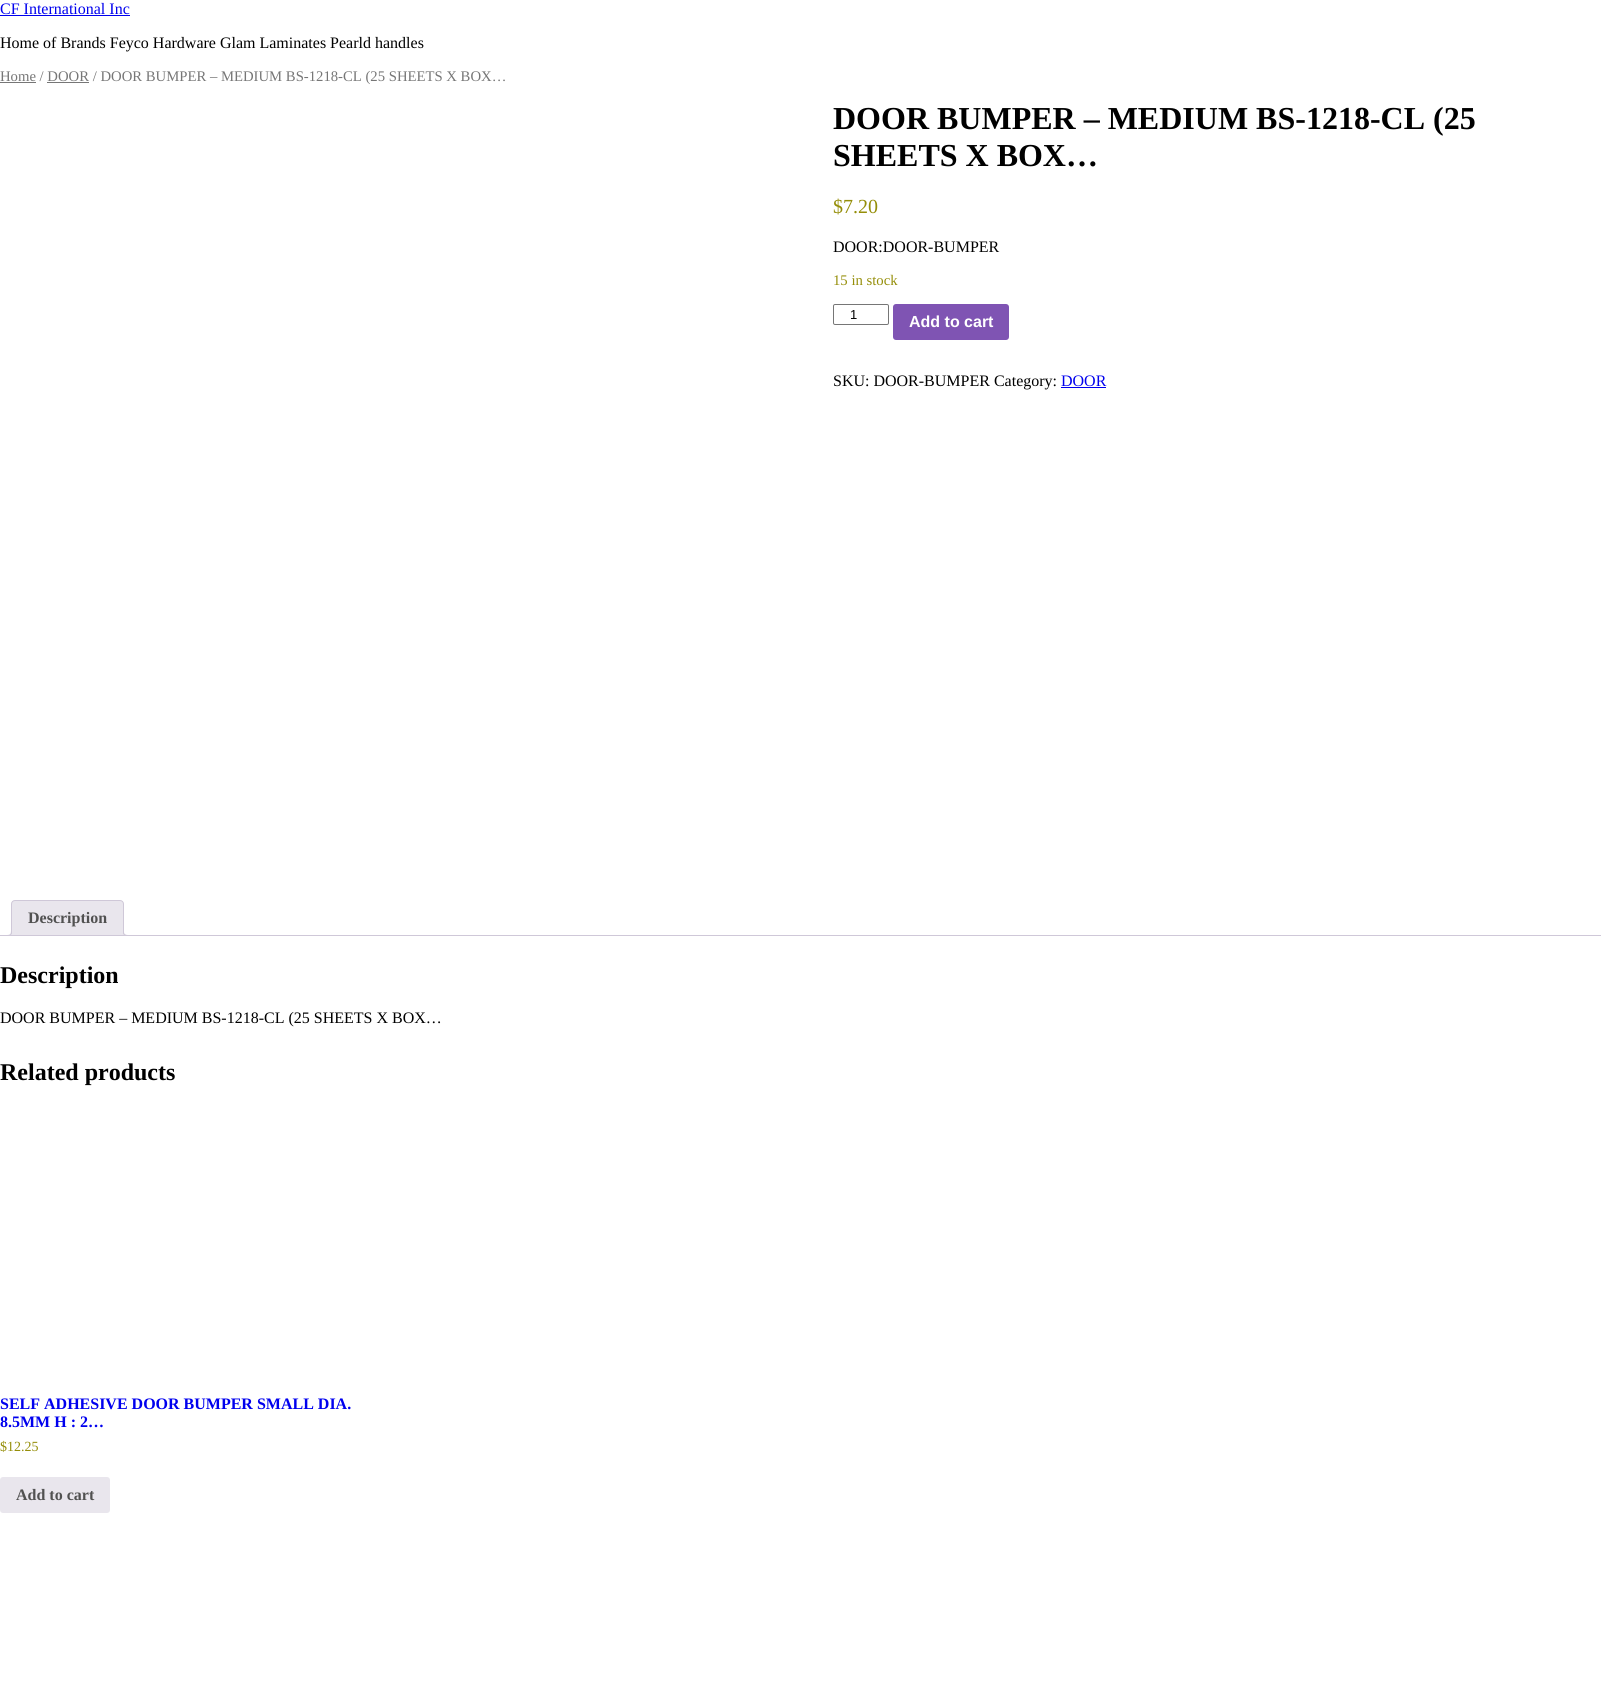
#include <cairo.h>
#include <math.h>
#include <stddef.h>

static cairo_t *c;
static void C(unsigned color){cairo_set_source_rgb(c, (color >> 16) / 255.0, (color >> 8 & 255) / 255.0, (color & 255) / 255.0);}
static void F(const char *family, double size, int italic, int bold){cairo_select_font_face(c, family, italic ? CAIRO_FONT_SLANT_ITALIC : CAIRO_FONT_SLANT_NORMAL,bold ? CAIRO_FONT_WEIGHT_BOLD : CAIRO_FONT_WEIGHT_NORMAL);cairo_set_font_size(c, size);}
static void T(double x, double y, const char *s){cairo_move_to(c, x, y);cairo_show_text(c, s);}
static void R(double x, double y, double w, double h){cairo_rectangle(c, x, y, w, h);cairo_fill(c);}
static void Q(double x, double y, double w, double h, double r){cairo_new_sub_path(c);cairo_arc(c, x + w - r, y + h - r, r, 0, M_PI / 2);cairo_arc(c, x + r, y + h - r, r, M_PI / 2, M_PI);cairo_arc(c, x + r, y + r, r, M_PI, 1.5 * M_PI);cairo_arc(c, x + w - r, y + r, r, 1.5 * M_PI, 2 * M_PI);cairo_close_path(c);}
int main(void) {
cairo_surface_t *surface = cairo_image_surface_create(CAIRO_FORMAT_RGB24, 1601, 1700);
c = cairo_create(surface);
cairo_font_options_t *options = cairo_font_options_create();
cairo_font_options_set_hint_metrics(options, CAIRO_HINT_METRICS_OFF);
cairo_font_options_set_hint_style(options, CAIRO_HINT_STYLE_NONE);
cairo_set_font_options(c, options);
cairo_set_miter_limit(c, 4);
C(0xffffff);
cairo_paint(c);
F("Liberation Serif",16,0,0);
C(0x0000ee);
T(0,14,"CF International Inc");
R(0,15,130,1);
C(0x000000);
T(0,48,"Home of Brands Feyco Hardware Glam Laminates Pearld handles");
C(0x767676);
R(0,82,36,1);
F("Liberation Serif",14.7,0,0);
T(0,81,"Home / DOOR / DOOR BUMPER – MEDIUM BS-1218-CL (25 SHEETS X BOX…");
R(47,82,42,1);
F("Liberation Serif",32,0,1);
C(0x000000);
T(833,129,"DOOR BUMPER – MEDIUM BS-1218-CL (25");
T(833,166,"SHEETS X BOX…");
F("Liberation Serif",20,0,0);
C(0x958e09);
T(833,213,"$7.20");
F("Liberation Serif",16,0,0);
C(0x000000);
T(833,252,"DOOR:DOOR-BUMPER");
F("Liberation Serif",14.7,0,0);
C(0x958e09);
T(833,285,"15 in stock");
Q(833.5,304.5,55,20,1.5);
C(0x767676);
cairo_set_line_width(c,1);
cairo_stroke(c);
F("Liberation Sans",13,0,0);
C(0x000000);
T(850,319,"1");
C(0x7f54b3);
Q(893,304,116,36,3);
cairo_fill(c);
F("Liberation Sans",16,0,1);
C(0xffffff);
T(909,327,"Add to cart");
F("Liberation Serif",16,0,0);
C(0x000000);
T(833,386,"SKU: DOOR-BUMPER Category:");
C(0x0000ee);
T(1061,386,"DOOR");
R(1061,387,45,1);
C(0xe9e6ed);
cairo_new_path(c);
cairo_move_to(c,15,900.5);
cairo_line_to(c,120,900.5);
cairo_curve_to(c,122,900.5,123.5,902,123.5,904);
cairo_line_to(c,123.5,935.5);
cairo_line_to(c,11.5,935.5);
cairo_line_to(c,11.5,904);
cairo_curve_to(c,11.5,902,13,900.5,15,900.5);
cairo_close_path(c);
cairo_fill_preserve(c);
C(0xcfc8d8);
cairo_stroke(c);
F("Liberation Serif",16,0,1);
C(0x515151);
T(28,923,"Description");
cairo_save(c);
cairo_rectangle(c,0,900,1601,36);
cairo_clip(c);
C(0xe9e6ed);
cairo_new_path(c);
cairo_move_to(c,9,936);
cairo_line_to(c,9,938);
cairo_curve_to(c,12.5,938,14,936.5,14,933);
cairo_line_to(c,12,933);
cairo_curve_to(c,11.5,934.5,10.5,935.5,9,936);
cairo_close_path(c);
cairo_fill(c);
cairo_restore(c);
C(0xcfc8d8);
cairo_set_fill_rule(c,CAIRO_FILL_RULE_EVEN_ODD);
cairo_new_path(c);
cairo_move_to(c,7,931);
cairo_line_to(c,12,931);
cairo_curve_to(c,12,934.5,10.5,936,7,936);
cairo_close_path(c);
cairo_move_to(c,7,931);
cairo_line_to(c,11,931);
cairo_curve_to(c,11,934,10,935,7,935);
cairo_close_path(c);
cairo_fill(c);
cairo_save(c);
cairo_set_fill_rule(c,CAIRO_FILL_RULE_WINDING);
cairo_rectangle(c,0,900,1601,36);
cairo_clip(c);
C(0xe9e6ed);
cairo_new_path(c);
cairo_move_to(c,121,933);
cairo_curve_to(c,121,936.5,122.5,938,126,938);
cairo_line_to(c,126,936);
cairo_curve_to(c,124.5,935.5,123.5,934.5,123,933);
cairo_close_path(c);
cairo_fill(c);
cairo_restore(c);
cairo_new_path(c);
cairo_move_to(c,123,931);
cairo_line_to(c,128,931);
cairo_line_to(c,128,936);
cairo_curve_to(c,125.5,936,123,935,123,932);
cairo_close_path(c);
cairo_move_to(c,124,931);
cairo_line_to(c,128,931);
cairo_line_to(c,128,935);
cairo_curve_to(c,126,935,124,934.5,124,932);
cairo_close_path(c);
cairo_fill(c);
R(0,935,1601,1);
F("Liberation Serif",24,0,1);
C(0x000000);
T(0,983,"Description");
F("Liberation Serif",16,0,0);
T(0,1023,"DOOR BUMPER – MEDIUM BS-1218-CL (25 SHEETS X BOX…");
F("Liberation Serif",24,0,1);
T(0,1080,"Related products");
F("Liberation Serif",16,0,1);
C(0x0000ee);
T(0,1409,"SELF ADHESIVE DOOR BUMPER SMALL DIA.");
T(0,1427,"8.5MM H : 2…");
F("Liberation Serif",14,0,0);
C(0x958e09);
T(0,1451,"$12.25");
C(0xe9e6ed);
Q(0,1477,110,36,3);
cairo_fill(c);
F("Liberation Serif",16,0,1);
C(0x515151);
T(16,1500,"Add to cart");
cairo_surface_write_to_png(surface, "o.png");
cairo_font_options_destroy(options);
cairo_destroy(c);
cairo_surface_destroy(surface);
return 0;
}
